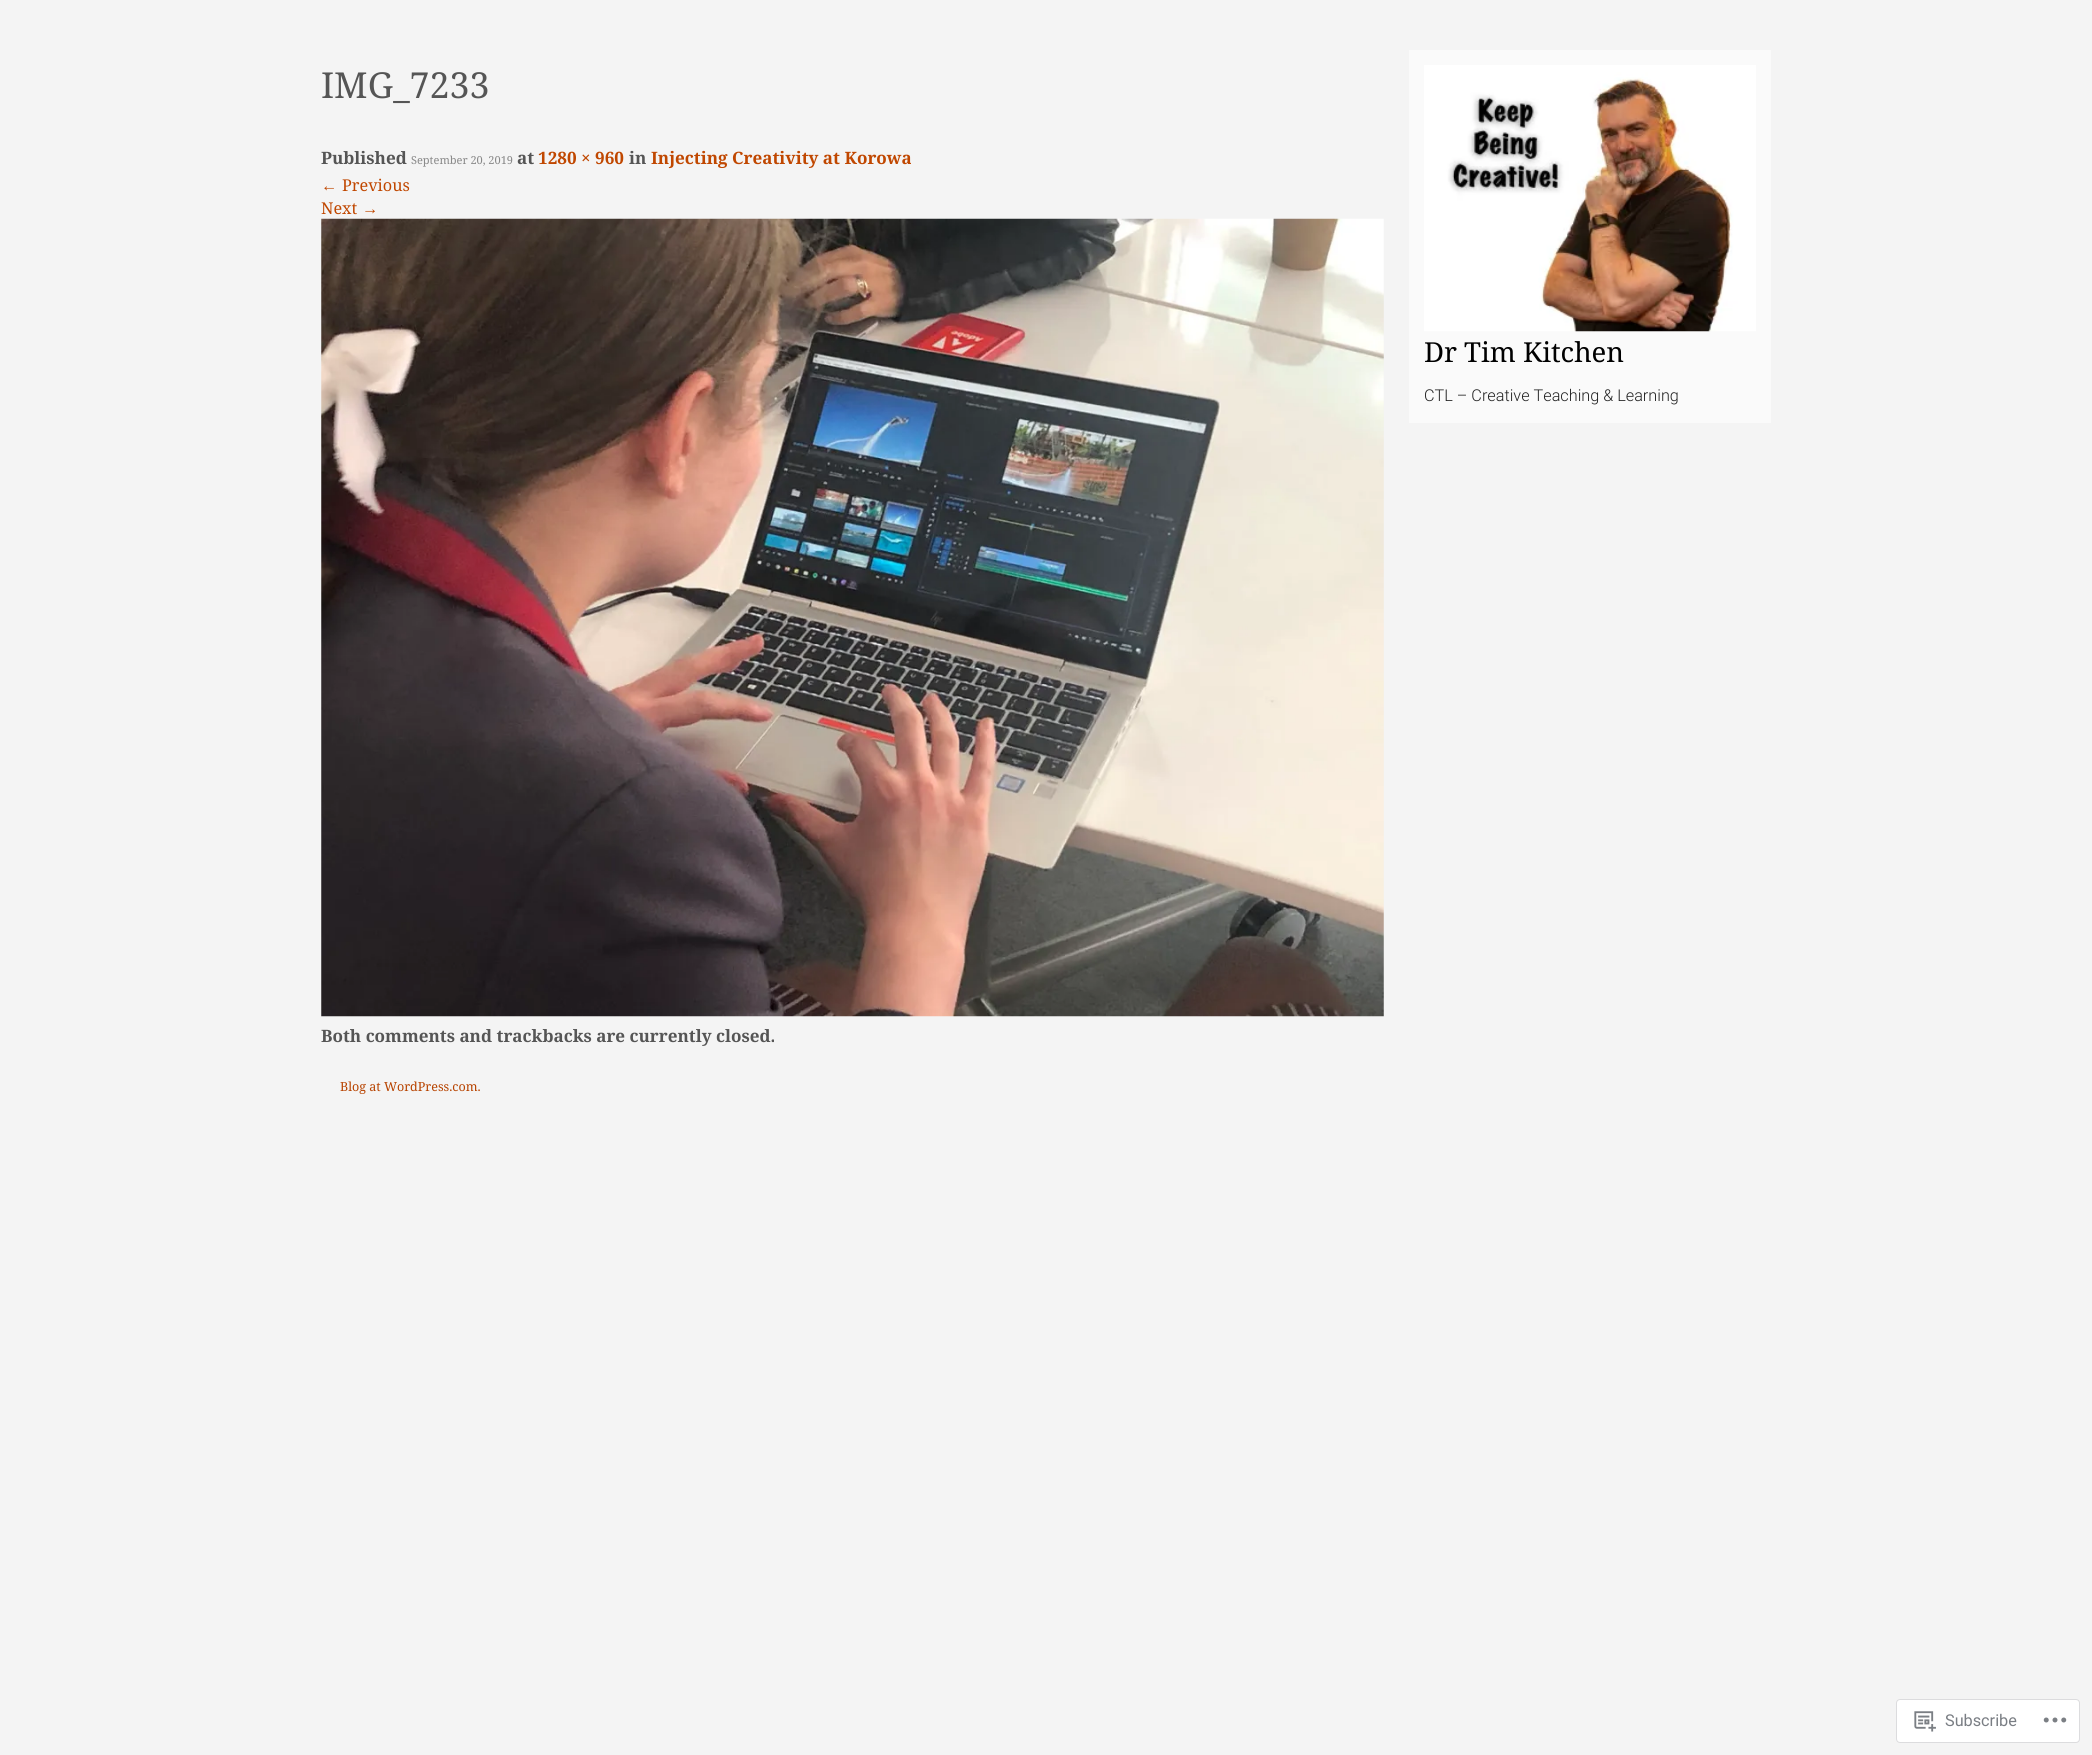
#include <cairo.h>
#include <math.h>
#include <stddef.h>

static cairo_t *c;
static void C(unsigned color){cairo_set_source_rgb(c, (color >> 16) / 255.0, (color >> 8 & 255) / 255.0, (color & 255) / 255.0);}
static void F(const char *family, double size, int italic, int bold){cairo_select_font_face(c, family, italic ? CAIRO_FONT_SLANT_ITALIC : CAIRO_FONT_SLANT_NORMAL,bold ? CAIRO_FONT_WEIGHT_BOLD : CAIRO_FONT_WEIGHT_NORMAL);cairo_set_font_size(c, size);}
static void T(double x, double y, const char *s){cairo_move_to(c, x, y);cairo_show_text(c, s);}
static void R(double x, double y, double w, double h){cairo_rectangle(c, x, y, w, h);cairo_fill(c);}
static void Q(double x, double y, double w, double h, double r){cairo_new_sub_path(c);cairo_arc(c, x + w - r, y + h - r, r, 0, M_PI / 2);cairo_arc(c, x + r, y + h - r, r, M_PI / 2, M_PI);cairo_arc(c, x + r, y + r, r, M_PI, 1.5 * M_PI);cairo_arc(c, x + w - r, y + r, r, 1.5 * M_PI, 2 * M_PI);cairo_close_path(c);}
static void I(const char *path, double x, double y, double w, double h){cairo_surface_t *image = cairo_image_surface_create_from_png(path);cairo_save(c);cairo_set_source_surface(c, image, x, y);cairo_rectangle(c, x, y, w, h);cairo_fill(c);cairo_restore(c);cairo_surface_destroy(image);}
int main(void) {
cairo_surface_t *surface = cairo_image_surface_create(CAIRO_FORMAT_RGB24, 2092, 1755);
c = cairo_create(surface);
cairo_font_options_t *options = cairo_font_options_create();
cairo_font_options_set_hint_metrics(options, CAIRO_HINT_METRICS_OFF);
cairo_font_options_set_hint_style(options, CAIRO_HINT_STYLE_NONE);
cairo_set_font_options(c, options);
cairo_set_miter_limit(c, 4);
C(0xf4f4f4);
cairo_paint(c);
F("Noto Serif",35.75,0,0);
C(0x555555);
T(321,98,"IMG_7233");
F("Noto Serif",17.05,0,1);
T(321,164,"Published");
F("Noto Serif",11,0,0);
C(0x888888);
T(411,164,"September 20, 2019");
F("Noto Serif",17.05,0,1);
C(0x555555);
T(517,164,"at");
C(0xc04700);
T(538,164,"1280 × 960");
C(0x555555);
T(629,164,"in");
C(0xc04700);
T(651,164,"Injecting Creativity at Korowa");
F("Liberation Serif",16.25,0,0);
T(321,191,"←");
F("Noto Serif",16.25,0,0);
T(342,191,"Previous");
T(321,214,"Next");
F("Liberation Serif",16.25,0,0);
T(362,214,"→");
I("1.png",321,218,1063,799);
F("Noto Serif",17.05,0,1);
C(0x555555);
T(321,1042,"Both comments and trackbacks are currently closed.");
C(0xfafafa);
R(1409,50,362,373);
I("2.png",1424,65,332,267);
F("Noto Serif",27.5,0,0);
C(0x000000);
T(1424,362,"Dr Tim Kitchen");
F("Roboto Light",16.25,0,0);
C(0x222222);
T(1424,401,"CTL – Creative Teaching & Learning");
F("Noto Serif",12.5,0,0);
C(0xb74300);
T(340,1091,"Blog at WordPress.com.");
C(0xffffff);
Q(1896.5,1699.5,183,43,3.5);
cairo_fill_preserve(c);
C(0xdcdcde);
cairo_set_line_width(c,1);
cairo_stroke(c);
I("3.png",1914,1711,22,21);
F("Roboto",16.25,0,0);
C(0x7a7e84);
T(1945,1726,"Subscribe");
I("4.png",2043,1717,24,6);
cairo_surface_write_to_png(surface, "o.png");
cairo_font_options_destroy(options);
cairo_destroy(c);
cairo_surface_destroy(surface);
return 0;
}
